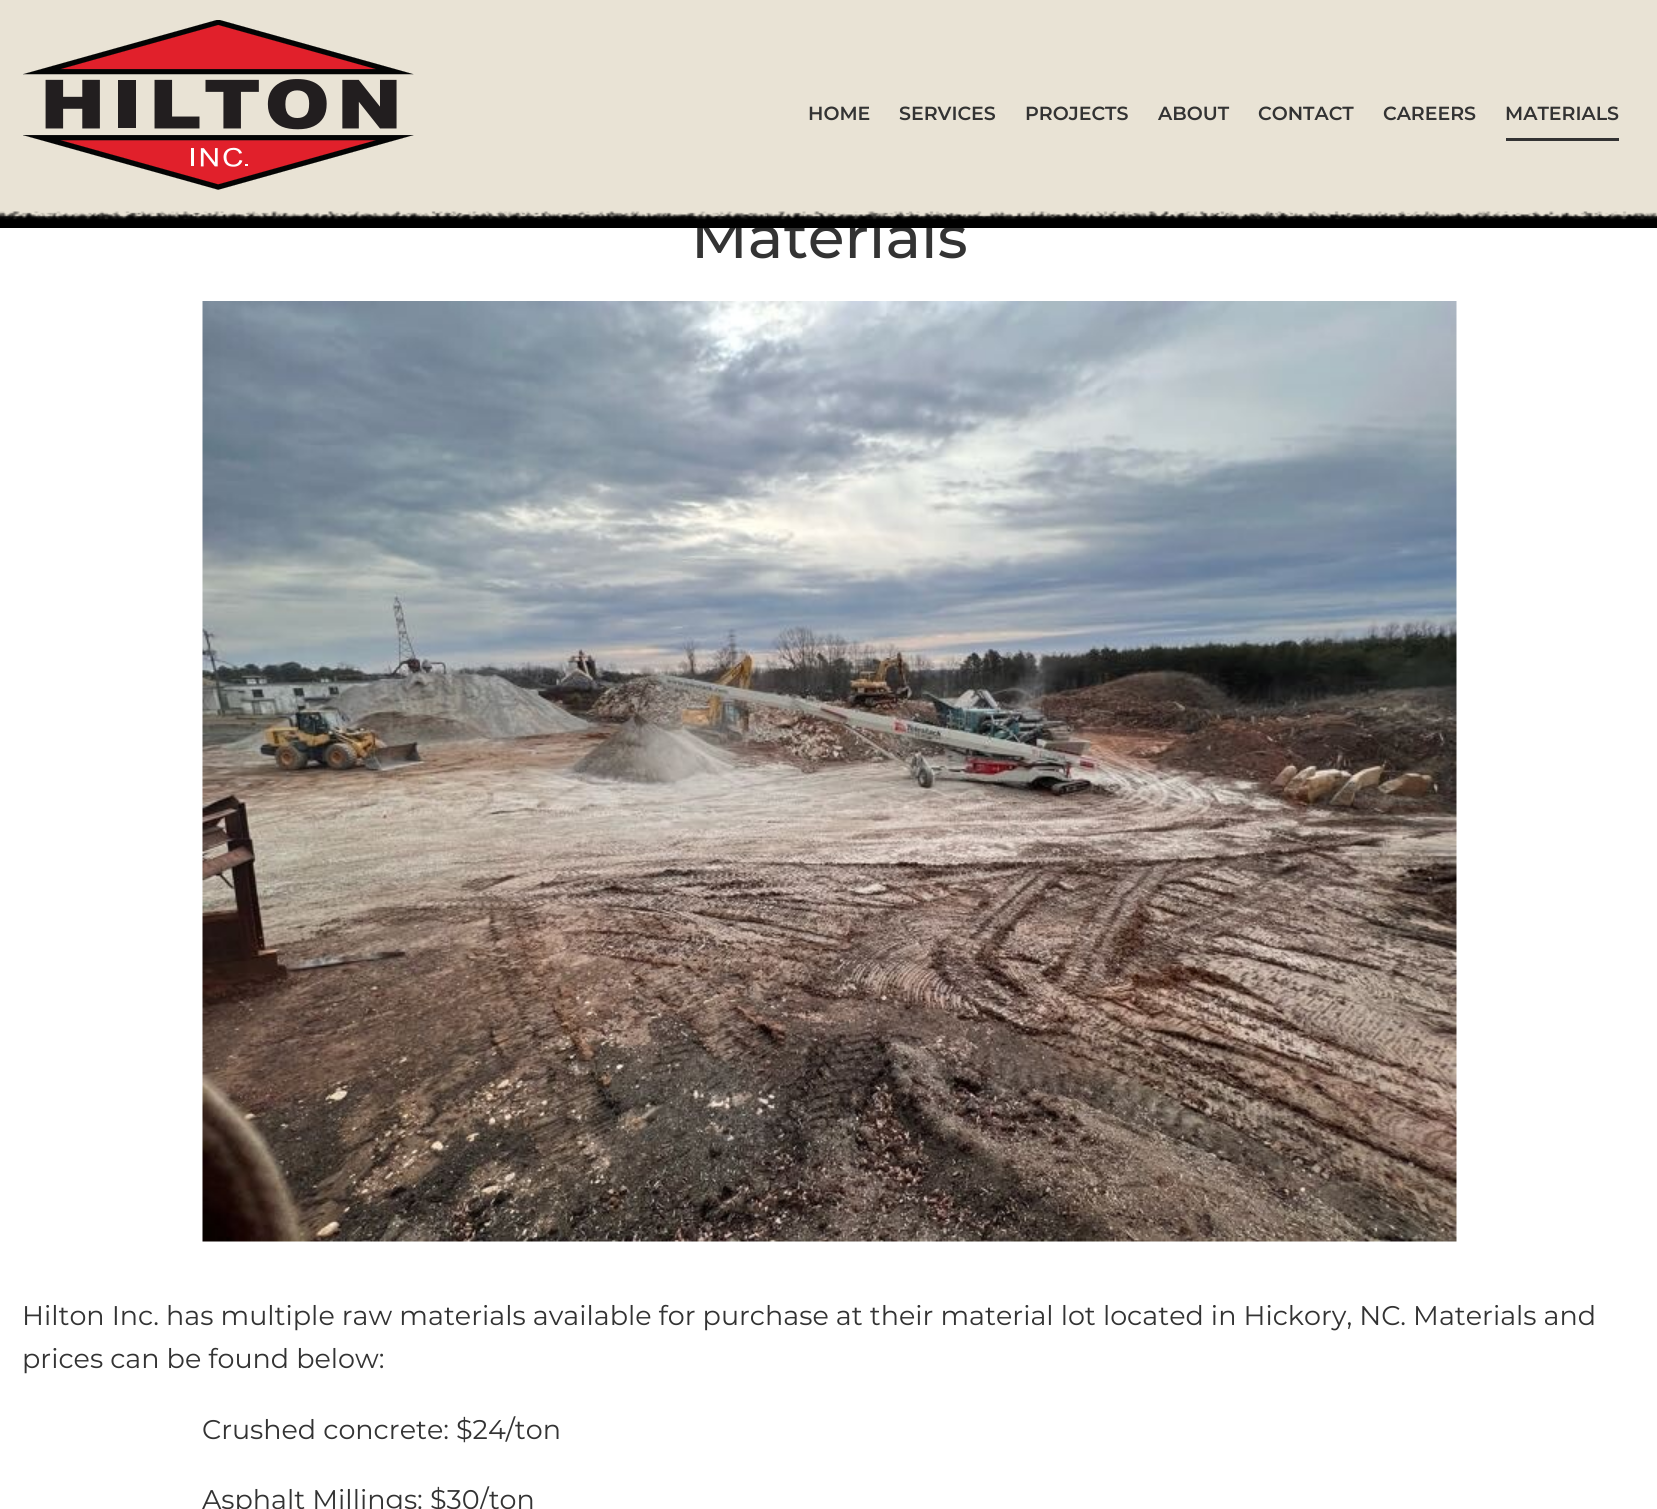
#include <cairo.h>
#include <math.h>
#include <stddef.h>

static cairo_t *c;
static void C(unsigned color){cairo_set_source_rgb(c, (color >> 16) / 255.0, (color >> 8 & 255) / 255.0, (color & 255) / 255.0);}
static void F(const char *family, double size, int italic, int bold){cairo_select_font_face(c, family, italic ? CAIRO_FONT_SLANT_ITALIC : CAIRO_FONT_SLANT_NORMAL,bold ? CAIRO_FONT_WEIGHT_BOLD : CAIRO_FONT_WEIGHT_NORMAL);cairo_set_font_size(c, size);}
static void T(double x, double y, const char *s){cairo_move_to(c, x, y);cairo_show_text(c, s);}
static void R(double x, double y, double w, double h){cairo_rectangle(c, x, y, w, h);cairo_fill(c);}
static void I(const char *path, double x, double y, double w, double h){cairo_surface_t *image = cairo_image_surface_create_from_png(path);cairo_save(c);cairo_set_source_surface(c, image, x, y);cairo_rectangle(c, x, y, w, h);cairo_fill(c);cairo_restore(c);cairo_surface_destroy(image);}
int main(void) {
cairo_surface_t *surface = cairo_image_surface_create(CAIRO_FORMAT_RGB24, 1657, 1509);
c = cairo_create(surface);
cairo_font_options_t *options = cairo_font_options_create();
cairo_font_options_set_hint_metrics(options, CAIRO_HINT_METRICS_OFF);
cairo_font_options_set_hint_style(options, CAIRO_HINT_STYLE_NONE);
cairo_set_font_options(c, options);
cairo_set_miter_limit(c, 4);
C(0xffffff);
cairo_paint(c);
C(0xe9e3d5);
R(0,0,1657,211);
F("Montserrat Medium",59.5,0,0);
C(0x333333);
T(691,258,"Materials");
I("1.png",0,211,1657,17);
I("2.png",23,20,391,170);
F("Montserrat SemiBold",19,0,0);
T(808,120,"HOME");
T(899,120,"SERVICES");
T(1025,120,"PROJECTS");
T(1158,120,"ABOUT");
T(1258,120,"CONTACT");
T(1383,120,"CAREERS");
T(1505,120,"MATERIALS");
R(1506,138,113,3);
I("3.png",202,301,1255,941);
F("Montserrat",27,0,0);
T(22,1325,"Hilton Inc. has multiple raw materials available for purchase at their material lot located in Hickory, NC. Materials and");
T(22,1368,"prices can be found below:");
T(202,1439,"Crushed concrete: $24/ton");
T(202,1509,"Asphalt Millings: $30/ton");
cairo_surface_write_to_png(surface, "o.png");
cairo_font_options_destroy(options);
cairo_destroy(c);
cairo_surface_destroy(surface);
return 0;
}
